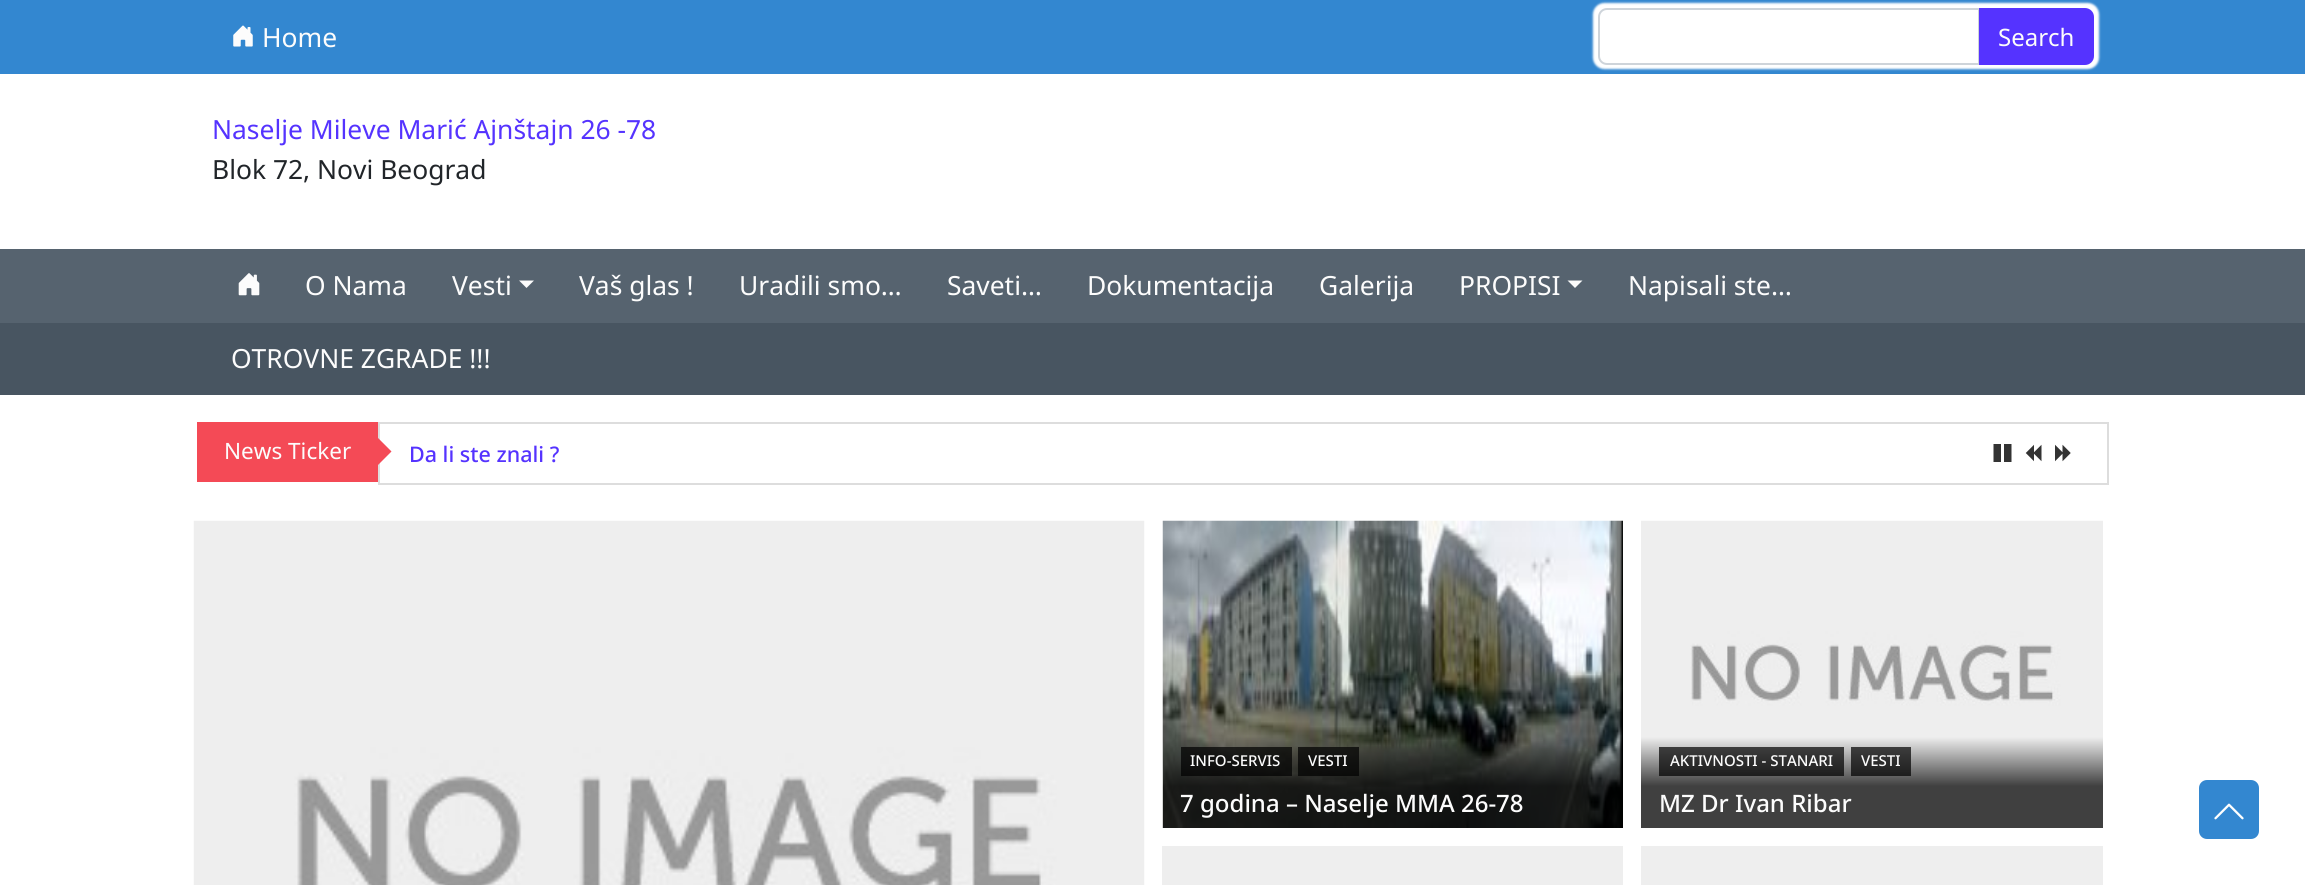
#include <cairo.h>
#include <math.h>
#include <stddef.h>

static cairo_t *c;
static void C(unsigned color){cairo_set_source_rgb(c, (color >> 16) / 255.0, (color >> 8 & 255) / 255.0, (color & 255) / 255.0);}
static void F(const char *family, double size, int italic, int bold){cairo_select_font_face(c, family, italic ? CAIRO_FONT_SLANT_ITALIC : CAIRO_FONT_SLANT_NORMAL,bold ? CAIRO_FONT_WEIGHT_BOLD : CAIRO_FONT_WEIGHT_NORMAL);cairo_set_font_size(c, size);}
static void T(double x, double y, const char *s){cairo_move_to(c, x, y);cairo_show_text(c, s);}
static void R(double x, double y, double w, double h){cairo_rectangle(c, x, y, w, h);cairo_fill(c);}
static void Q(double x, double y, double w, double h, double r){cairo_new_sub_path(c);cairo_arc(c, x + w - r, y + h - r, r, 0, M_PI / 2);cairo_arc(c, x + r, y + h - r, r, M_PI / 2, M_PI);cairo_arc(c, x + r, y + r, r, M_PI, 1.5 * M_PI);cairo_arc(c, x + w - r, y + r, r, 1.5 * M_PI, 2 * M_PI);cairo_close_path(c);}
static void S(double x, double y, double w, double h, double r, double blur, double alpha){cairo_push_group_with_content(c, CAIRO_CONTENT_ALPHA);cairo_set_operator(c, CAIRO_OPERATOR_SOURCE);for (int i = 15; i >= -15 && fmin(w, h) + blur * i / 3 > 0; i -= 2) {double e = blur * i / 6;cairo_set_source_rgba(c, 0, 0, 0, alpha * erfc((i - 1) / 8.5) / 2);Q(x - e, y - e, w + 2 * e, h + 2 * e, fmax(0, fmin(r + e + blur * .6, fmin(w, h) / 2 + e)));cairo_fill(c);}cairo_pattern_t *soft = cairo_pop_group(c);cairo_mask(c, soft);cairo_pattern_destroy(soft);}
static void I(const char *path, double x, double y, double w, double h){cairo_surface_t *image = cairo_image_surface_create_from_png(path);cairo_save(c);cairo_set_source_surface(c, image, x, y);cairo_rectangle(c, x, y, w, h);cairo_fill(c);cairo_restore(c);cairo_surface_destroy(image);}
int main(void) {
cairo_surface_t *surface = cairo_image_surface_create(CAIRO_FORMAT_RGB24, 2305, 885);
c = cairo_create(surface);
cairo_font_options_t *options = cairo_font_options_create();
cairo_font_options_set_hint_metrics(options, CAIRO_HINT_METRICS_OFF);
cairo_font_options_set_hint_style(options, CAIRO_HINT_STYLE_NONE);
cairo_set_font_options(c, options);
cairo_set_miter_limit(c, 4);
cairo_pattern_t *gradient;
C(0xffffff);
cairo_paint(c);
C(0x3387d0);
R(0,0,2305,74);
I("1.png",233,25,20,22);
F("Noto Sans",26.4,0,0);
C(0xfcfcfc);
T(262,47,"Home");
C(0xffffff);
S(1593,3,506,66,11,1,1);
cairo_new_path(c);
cairo_move_to(c,1607,9);
cairo_line_to(c,1979,9);
cairo_line_to(c,1979,64);
cairo_line_to(c,1607,64);
cairo_curve_to(c,1602.5,64,1599,60.5,1599,56);
cairo_line_to(c,1599,17);
cairo_curve_to(c,1599,12.5,1602.5,9,1607,9);
cairo_close_path(c);
C(0xced4da);
cairo_stroke(c);
C(0x5533ff);
cairo_new_path(c);
cairo_move_to(c,1979,8);
cairo_line_to(c,2085,8);
cairo_curve_to(c,2090,8,2094,12,2094,17);
cairo_line_to(c,2094,56);
cairo_curve_to(c,2094,61,2090,65,2085,65);
cairo_line_to(c,1979,65);
cairo_close_path(c);
cairo_fill(c);
F("Noto Sans",24,0,0);
C(0xfcfcfc);
T(1998,46,"Search");
F("Noto Sans",26.4,0,0);
C(0x5533ff);
T(212,139,"Naselje Mileve Marić Ajnštajn 26 -78");
C(0x212529);
T(212,179,"Blok 72, Novi Beograd");
C(0x485561);
R(0,323,2305,72);
C(0x56636f);
R(0,249,2305,74);
I("2.png",238,273,22,23);
C(0xfcfcfc);
T(305,295,"O Nama");
T(452,295,"Vesti");
cairo_new_path(c);
cairo_move_to(c,519,280.5);
cairo_line_to(c,534,280.5);
cairo_line_to(c,526.5,288);
cairo_close_path(c);
cairo_fill(c);
T(579,295,"Vaš glas !");
T(739,295,"Uradili smo…");
T(947,295,"Saveti…");
T(1087,295,"Dokumentacija");
T(1319,295,"Galerija");
T(1459,295,"PROPISI");
cairo_new_path(c);
cairo_move_to(c,1567.5,280.5);
cairo_line_to(c,1582.5,280.5);
cairo_line_to(c,1575,288);
cairo_close_path(c);
cairo_fill(c);
T(1628,295,"Napisali ste…");
T(231,368,"OTROVNE ZGRADE !!!");
C(0xf44a56);
R(197,422,181,60);
F("Noto Sans",22.5,0,0);
C(0xfcfcfc);
T(224,459,"News Ticker");
cairo_rectangle(c,379,423,1729,61);
C(0xdddddd);
cairo_stroke(c);
C(0xf44a56);
cairo_new_path(c);
cairo_move_to(c,376.5,466.5);
cairo_line_to(c,376.5,436.5);
cairo_line_to(c,391.5,451.5);
cairo_close_path(c);
cairo_fill(c);
F("Noto Sans Medium",21.5,0,0);
C(0x5533ff);
T(409,462,"Da li ste znali ?");
I("3.png",1993,444,19,18);
I("4.png",2025,444,17,18);
I("5.png",2055,444,16,18);
I("6.png",193,520,952,365);
I("7.png",1162,520,461,308);
cairo_set_source_rgba(c,0,0,0,0.7);
R(1181,747,111,29);
F("Noto Sans Medium",15,0,0);
C(0xfcfcfc);
T(1190,766,"INFO-SERVIS");
cairo_set_source_rgba(c,0,0,0,0.7);
R(1298,747,61,29);
C(0xfcfcfc);
T(1308,766,"VESTI");
F("Noto Sans Medium",24,0,0);
T(1180,812,"7 godina – Naselje MMA 26-78");
I("8.png",1641,520,462,217);
gradient = cairo_pattern_create_linear(1872,737,1872,828);
cairo_pattern_add_color_stop_rgba(gradient,0,0.933,0.933,0.933,1);
cairo_pattern_add_color_stop_rgba(gradient,.54,0.251,0.251,0.251,1);
cairo_set_source(c,gradient);
cairo_pattern_destroy(gradient);
R(1641,737,462,91);
cairo_set_source_rgba(c,0,0,0,0.7);
R(1659,747,185,29);
F("Noto Sans Medium",15,0,0);
C(0xfcfcfc);
T(1670,766,"AKTIVNOSTI - STANARI");
cairo_set_source_rgba(c,0,0,0,0.7);
R(1851,747,60,29);
C(0xfcfcfc);
T(1861,766,"VESTI");
F("Noto Sans Medium",24,0,0);
T(1659,812,"MZ Dr Ivan Ribar");
C(0xeeeeee);
R(1162,846,461,39);
R(1641,846,462,39);
C(0x3387d0);
Q(2199,780,60,59,8);
cairo_fill(c);
I("9.png",2214,803,30,17);
cairo_surface_write_to_png(surface, "o.png");
cairo_font_options_destroy(options);
cairo_destroy(c);
cairo_surface_destroy(surface);
return 0;
}
